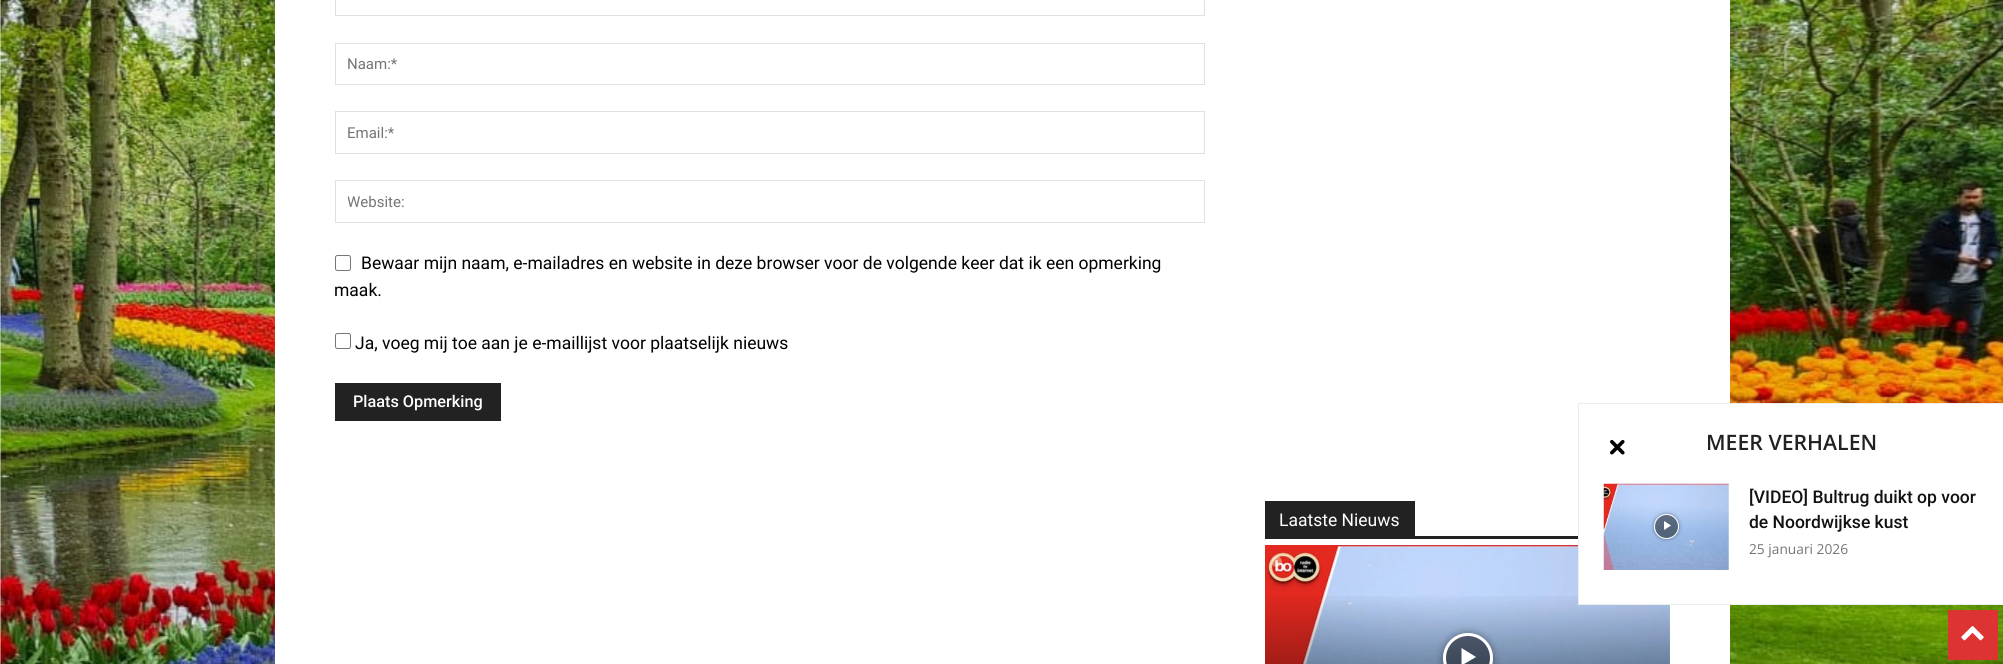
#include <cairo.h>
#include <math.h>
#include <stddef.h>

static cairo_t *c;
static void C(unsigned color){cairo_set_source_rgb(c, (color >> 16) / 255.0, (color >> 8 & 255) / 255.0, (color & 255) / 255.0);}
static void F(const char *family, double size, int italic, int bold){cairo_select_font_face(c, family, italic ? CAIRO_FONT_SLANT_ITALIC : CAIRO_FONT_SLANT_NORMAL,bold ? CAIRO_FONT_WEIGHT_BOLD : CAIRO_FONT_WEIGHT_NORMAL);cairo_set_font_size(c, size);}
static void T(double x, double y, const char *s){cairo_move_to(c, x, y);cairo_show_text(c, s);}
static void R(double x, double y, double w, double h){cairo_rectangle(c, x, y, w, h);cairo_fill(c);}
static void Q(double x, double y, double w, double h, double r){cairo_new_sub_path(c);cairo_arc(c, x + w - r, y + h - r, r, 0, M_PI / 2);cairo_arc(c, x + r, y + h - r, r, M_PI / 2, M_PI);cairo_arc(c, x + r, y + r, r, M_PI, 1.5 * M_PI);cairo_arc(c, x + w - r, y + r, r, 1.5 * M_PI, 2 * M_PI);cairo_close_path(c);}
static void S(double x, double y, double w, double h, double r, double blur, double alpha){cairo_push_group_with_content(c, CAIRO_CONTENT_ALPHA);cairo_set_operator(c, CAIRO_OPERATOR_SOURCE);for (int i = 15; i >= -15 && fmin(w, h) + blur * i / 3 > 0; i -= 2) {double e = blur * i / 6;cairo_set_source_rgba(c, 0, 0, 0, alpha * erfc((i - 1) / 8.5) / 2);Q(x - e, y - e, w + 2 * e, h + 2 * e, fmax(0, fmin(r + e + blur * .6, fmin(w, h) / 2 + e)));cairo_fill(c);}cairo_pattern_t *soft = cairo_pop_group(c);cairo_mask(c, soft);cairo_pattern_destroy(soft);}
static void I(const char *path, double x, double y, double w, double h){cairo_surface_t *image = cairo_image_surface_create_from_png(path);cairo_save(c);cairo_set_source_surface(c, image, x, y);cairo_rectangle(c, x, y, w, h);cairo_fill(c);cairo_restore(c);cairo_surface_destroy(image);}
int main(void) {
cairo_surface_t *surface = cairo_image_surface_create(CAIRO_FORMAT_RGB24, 2003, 664);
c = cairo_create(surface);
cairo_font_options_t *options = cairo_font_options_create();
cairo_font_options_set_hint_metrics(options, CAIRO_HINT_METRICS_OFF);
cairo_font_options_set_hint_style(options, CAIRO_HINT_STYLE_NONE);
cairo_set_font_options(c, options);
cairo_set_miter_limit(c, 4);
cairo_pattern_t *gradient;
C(0xffffff);
cairo_paint(c);
I("1.png",0,0,2003,664);
C(0xffffff);
R(275,0,1455,664);
cairo_rectangle(c,335.5,-.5,869,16);
C(0xe1e1e1);
cairo_set_line_width(c,1);
cairo_stroke(c);
cairo_rectangle(c,335.5,43.5,869,41);
cairo_stroke(c);
F("Roboto",15,0,0);
C(0x757575);
T(347,69,"Naam:*");
cairo_rectangle(c,335.5,111.5,869,42);
C(0xe1e1e1);
cairo_stroke(c);
C(0x757575);
T(347,138,"Email:*");
cairo_rectangle(c,335.5,180.5,869,42);
C(0xe1e1e1);
cairo_stroke(c);
cairo_save(c);
cairo_rectangle(c,348,193,845,17);
cairo_clip(c);
C(0x757575);
T(347,207,"Website:");
cairo_restore(c);
Q(335.5,255.5,15,15,2);
C(0x767676);
cairo_stroke(c);
F("Roboto",17.5,0,0);
C(0x000000);
T(361,269,"Bewaar mijn naam, e-mailadres en website in deze browser voor de volgende keer dat ik een opmerking");
T(334,296,"maak.");
Q(335.5,333.5,15,15,2);
C(0x767676);
cairo_stroke(c);
C(0x000000);
T(355,349,"Ja, voeg mij toe aan je e-maillijst voor plaatselijk nieuws");
C(0x222222);
R(335,383,166,38);
F("Roboto Medium",16.25,0,0);
C(0xffffff);
T(353,407,"Plaats Opmerking");
C(0x222222);
R(1265,536,313,3);
R(1265,501,150,35);
F("Roboto",17.5,0,0);
C(0xffffff);
T(1279,526,"Laatste Nieuws");
I("2.png",1265,545,405,119);
gradient = cairo_pattern_create_linear(1468,590,1468,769);
cairo_pattern_add_color_stop_rgba(gradient,0,0,0,0,0);
cairo_pattern_add_color_stop_rgba(gradient,1,0,0,0,.7);
cairo_set_source(c,gradient);
cairo_pattern_destroy(gradient);
R(1265,596,405,68);
cairo_save(c);
cairo_set_fill_rule(c,CAIRO_FILL_RULE_EVEN_ODD);
cairo_new_path(c);
cairo_move_to(c,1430,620);
cairo_line_to(c,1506,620);
cairo_line_to(c,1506,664);
cairo_line_to(c,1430,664);
cairo_close_path(c);
cairo_move_to(c,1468,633);
cairo_curve_to(c,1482,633,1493,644,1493,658);
cairo_curve_to(c,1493,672,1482,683,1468,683);
cairo_curve_to(c,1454,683,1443,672,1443,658);
cairo_curve_to(c,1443,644,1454,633,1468,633);
cairo_close_path(c);
cairo_clip(c);
C(0x000000);
S(1443,633,50,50,25,4,.4);
cairo_restore(c);
cairo_set_source_rgba(c,0,0,0,0.48);
cairo_arc(c,1468,658,23.5,0,2 * M_PI);
cairo_fill_preserve(c);
C(0xffffff);
cairo_set_line_width(c,3);
cairo_stroke(c);
cairo_new_path(c);
cairo_move_to(c,1461.5,648);
cairo_line_to(c,1461.5,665.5);
cairo_line_to(c,1476,657);
cairo_close_path(c);
cairo_fill(c);
R(1579,404,424,200);
C(0xededed);
R(1578,403,425,1);
R(1578,604,425,1);
R(1578,403,1,202);
I("3.png",1610,439,15,16);
F("Open Sans SemiBold",21.25,0,0);
C(0x222222);
T(1706,450,"MEER VERHALEN");
I("4.png",1603,483,126,87);
cairo_save(c);
cairo_set_fill_rule(c,CAIRO_FILL_RULE_EVEN_ODD);
cairo_new_path(c);
cairo_move_to(c,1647,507);
cairo_line_to(c,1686,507);
cairo_line_to(c,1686,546);
cairo_line_to(c,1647,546);
cairo_close_path(c);
cairo_move_to(c,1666.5,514);
cairo_curve_to(c,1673.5,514,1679,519.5,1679,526.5);
cairo_curve_to(c,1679,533.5,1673.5,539,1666.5,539);
cairo_curve_to(c,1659.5,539,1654,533.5,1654,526.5);
cairo_curve_to(c,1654,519.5,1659.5,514,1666.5,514);
cairo_close_path(c);
cairo_clip(c);
C(0x000000);
S(1654,514,25,25,12.5,2,.4);
cairo_restore(c);
cairo_set_source_rgba(c,0,0,0,0.48);
cairo_arc(c,1666.5,526.5,12,0,2 * M_PI);
cairo_fill_preserve(c);
C(0xffffff);
cairo_set_line_width(c,1);
cairo_stroke(c);
cairo_new_path(c);
cairo_move_to(c,1664,521);
cairo_line_to(c,1664,530);
cairo_line_to(c,1671,525.5);
cairo_close_path(c);
cairo_fill(c);
F("Roboto Medium",17.5,0,0);
C(0x111111);
T(1749,503,"[VIDEO] Bultrug duikt op voor");
T(1749,528,"de Noordwijkse kust");
F("Open Sans",13.75,0,0);
C(0x757575);
T(1749,554,"25 januari 2026");
C(0xdd3333);
R(1948,610,50,50);
I("5.png",1961,626,23,15);
cairo_surface_write_to_png(surface, "o.png");
cairo_font_options_destroy(options);
cairo_destroy(c);
cairo_surface_destroy(surface);
return 0;
}
